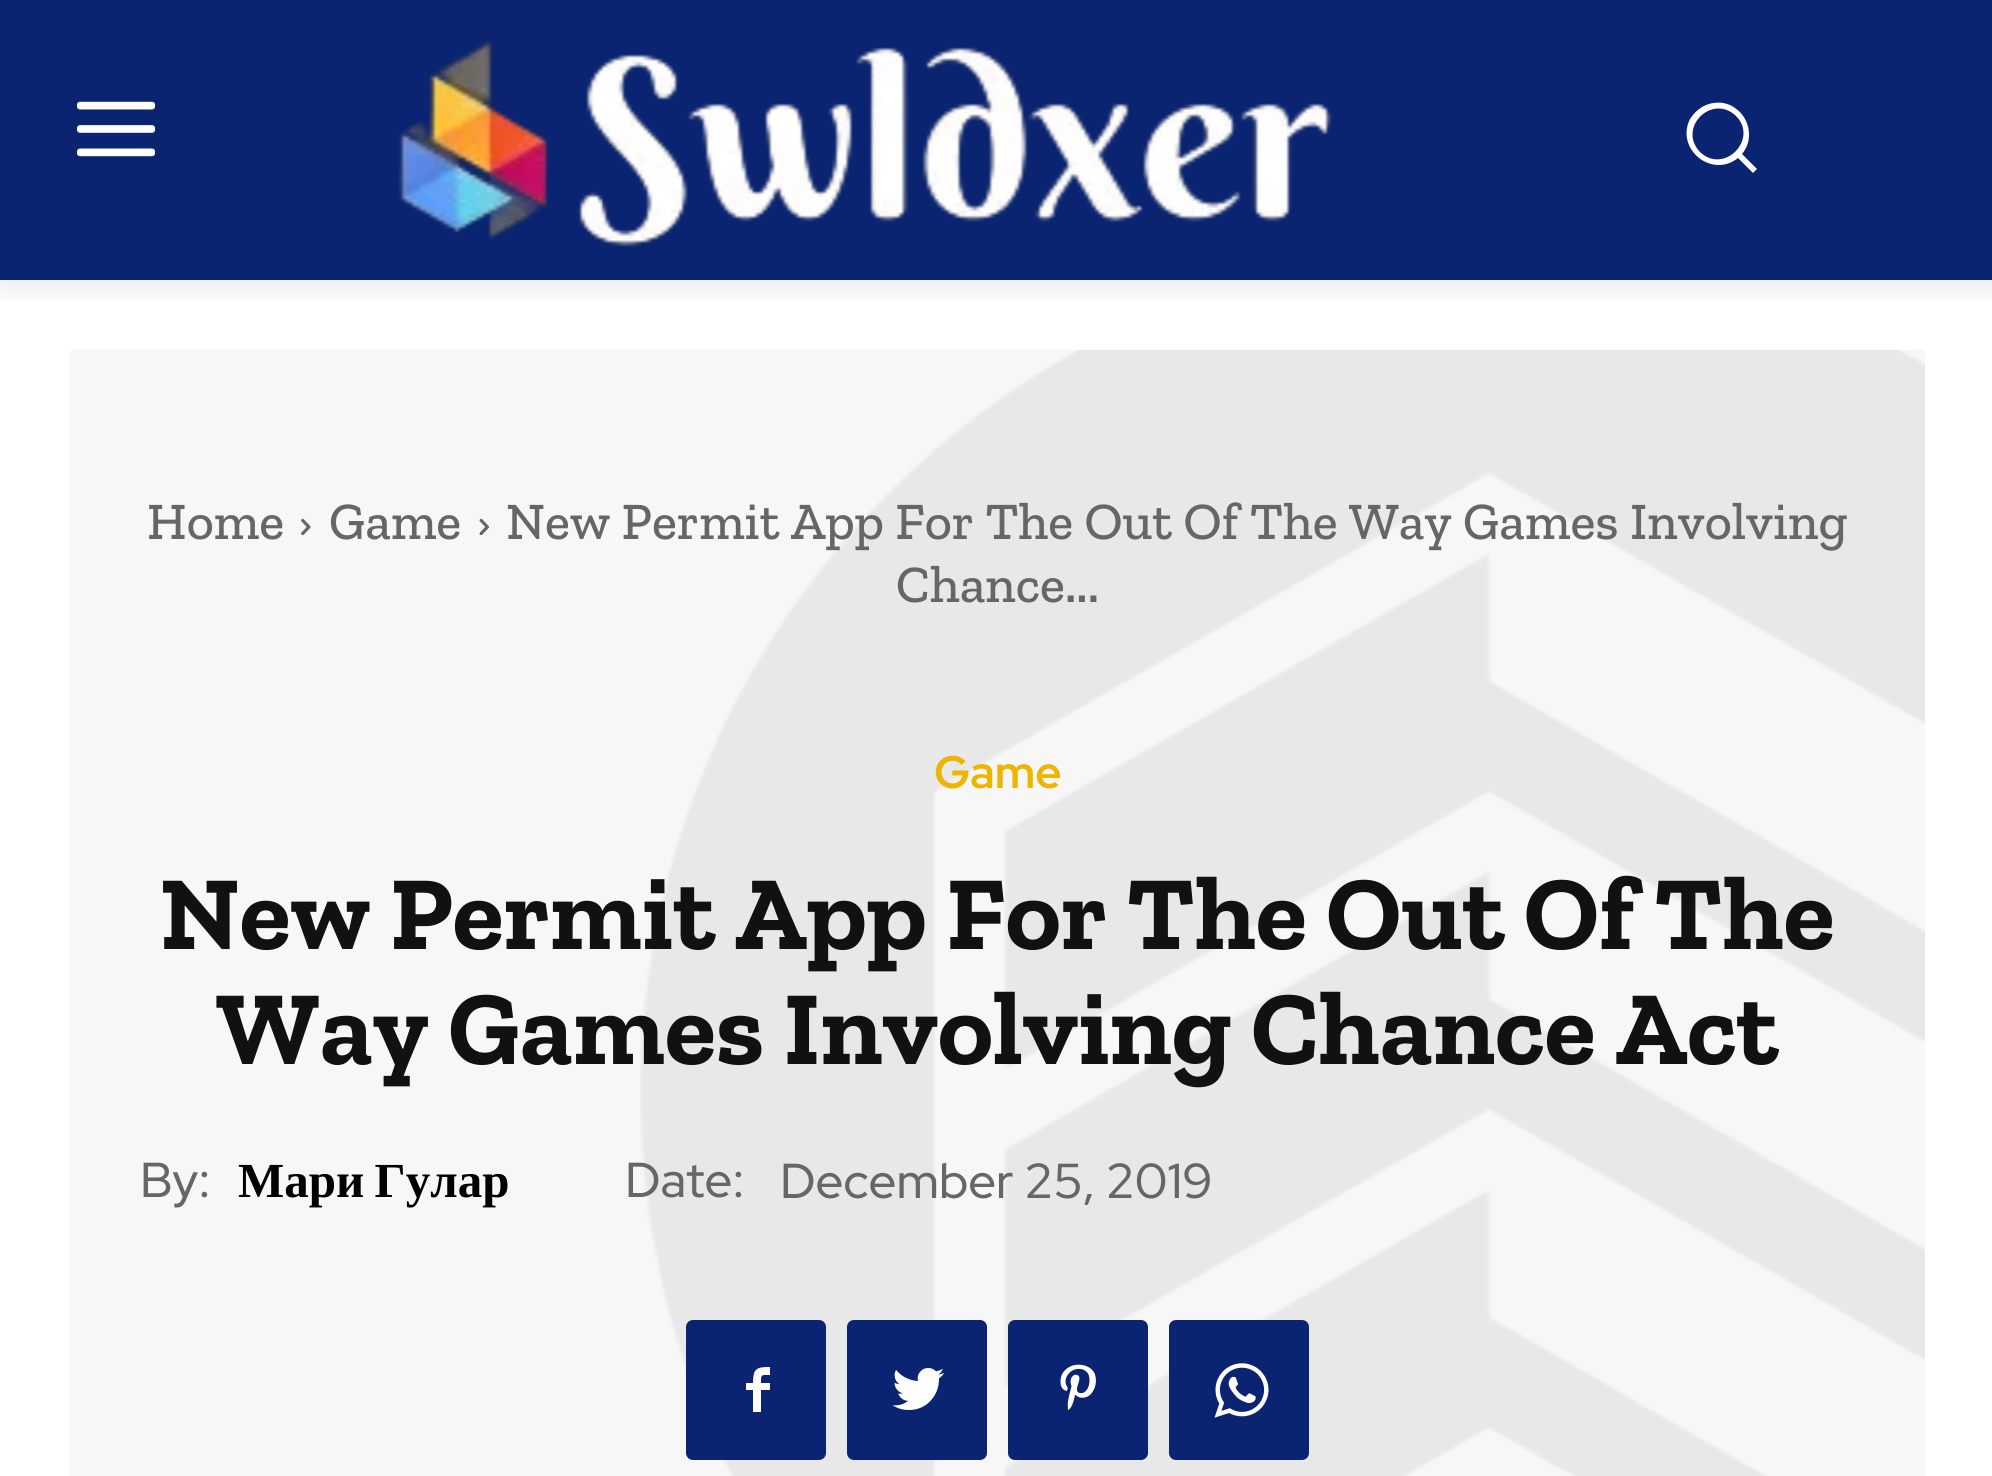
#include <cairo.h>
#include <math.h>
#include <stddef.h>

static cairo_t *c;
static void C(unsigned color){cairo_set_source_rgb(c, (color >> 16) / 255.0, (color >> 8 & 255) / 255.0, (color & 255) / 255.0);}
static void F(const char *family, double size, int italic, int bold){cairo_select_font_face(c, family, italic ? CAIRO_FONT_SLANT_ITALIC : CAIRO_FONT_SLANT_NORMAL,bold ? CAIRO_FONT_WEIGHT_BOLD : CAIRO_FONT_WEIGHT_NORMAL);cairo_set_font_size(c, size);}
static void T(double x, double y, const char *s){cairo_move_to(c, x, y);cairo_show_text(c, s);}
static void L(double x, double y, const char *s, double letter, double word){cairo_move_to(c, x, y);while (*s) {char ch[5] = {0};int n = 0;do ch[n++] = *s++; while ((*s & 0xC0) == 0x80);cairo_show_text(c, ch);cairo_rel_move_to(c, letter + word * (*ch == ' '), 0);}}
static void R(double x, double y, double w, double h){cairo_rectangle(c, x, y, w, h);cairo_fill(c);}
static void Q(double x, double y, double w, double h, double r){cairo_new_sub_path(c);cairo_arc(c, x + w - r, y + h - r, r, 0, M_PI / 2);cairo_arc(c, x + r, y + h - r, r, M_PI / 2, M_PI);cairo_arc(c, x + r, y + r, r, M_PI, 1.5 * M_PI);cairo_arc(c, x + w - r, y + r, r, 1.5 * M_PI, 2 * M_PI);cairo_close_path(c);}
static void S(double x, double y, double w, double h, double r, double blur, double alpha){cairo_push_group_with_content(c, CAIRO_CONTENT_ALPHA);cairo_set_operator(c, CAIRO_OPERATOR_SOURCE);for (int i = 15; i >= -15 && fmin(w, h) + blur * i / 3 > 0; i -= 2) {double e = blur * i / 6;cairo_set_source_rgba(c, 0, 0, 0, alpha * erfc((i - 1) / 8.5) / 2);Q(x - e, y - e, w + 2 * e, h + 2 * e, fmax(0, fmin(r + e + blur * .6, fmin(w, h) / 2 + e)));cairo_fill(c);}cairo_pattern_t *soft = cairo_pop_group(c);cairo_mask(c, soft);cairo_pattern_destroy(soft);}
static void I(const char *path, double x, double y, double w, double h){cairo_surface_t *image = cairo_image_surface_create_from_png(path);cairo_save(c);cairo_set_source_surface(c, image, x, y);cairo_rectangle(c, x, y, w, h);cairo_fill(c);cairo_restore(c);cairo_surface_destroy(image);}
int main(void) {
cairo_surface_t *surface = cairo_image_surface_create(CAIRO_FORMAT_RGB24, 1992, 1476);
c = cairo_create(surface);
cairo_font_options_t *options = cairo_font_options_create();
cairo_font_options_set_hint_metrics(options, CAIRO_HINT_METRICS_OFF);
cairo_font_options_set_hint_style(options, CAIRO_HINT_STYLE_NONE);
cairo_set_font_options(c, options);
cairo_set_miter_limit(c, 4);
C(0xffffff);
cairo_paint(c);
C(0x0a2472);
R(0,0,1992,280);
I("1.png",77,101,79,56);
I("2.png",398,40,934,207);
C(0xffffff);
cairo_new_path(c);
cairo_move_to(c,1757,169);
cairo_line_to(c,1742,154);
cairo_curve_to(c,1754,140,1750,118,1735,108);
cairo_curve_to(c,1727,102,1716,101,1706,105);
cairo_curve_to(c,1699,108,1694,113,1690,119);
cairo_curve_to(c,1675,149,1712,179,1738,158);
cairo_line_to(c,1753,173);
cairo_close_path(c);
cairo_move_to(c,1700,152);
cairo_curve_to(c,1677,128,1712,93,1736,116);
cairo_curve_to(c,1759,139,1724,175,1700,152);
cairo_close_path(c);
cairo_fill(c);
cairo_save(c);
cairo_rectangle(c,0,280,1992,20);
cairo_clip(c);
C(0x000000);
S(0,7,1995,280,0,17.5,.09);
cairo_restore(c);
C(0xf7f7f7);
R(70,350,1855,1126);
I("3.png",640,350,1285,1126);
F("Zilla Slab Medium",52.5,0,0);
C(0x666666);
T(147,539,"Home");
I("4.png",301,518,10,18);
T(329,539,"Game");
I("5.png",479,518,10,18);
T(506,539,"New Permit App For The Out Of The Way Games Involving");
T(896,602,"Chance...");
F("Red Hat Display",45.5,0,1);
C(0xedb500);
T(934,788,"Game");
F("Zilla Slab",105,0,1);
C(0x111111);
T(160,949,"New Permit App For The Out Of The");
T(216,1064,"Way Games Involving Chance Act");
F("Red Hat Display Medium",49,0,0);
C(0x666666);
T(140,1197,"By:");
F("Liberation Serif",49,0,1);
C(0x000000);
L(238,1197,"Мари Гулар",0,-2);
F("Red Hat Display Medium",49,0,0);
C(0x666666);
T(625,1197,"Date:");
T(780,1198,"December 25, 2019");
C(0x0a2472);
Q(686,1320,140,140,7);
cairo_fill(c);
C(0xffffff);
cairo_new_path(c);
cairo_move_to(c,770,1375);
cairo_curve_to(c,761,1375,761,1374,761,1383);
cairo_line_to(c,770,1383);
cairo_line_to(c,770,1390);
cairo_line_to(c,761,1390);
cairo_line_to(c,761,1412);
cairo_line_to(c,753,1412);
cairo_line_to(c,753,1390);
cairo_line_to(c,746,1390);
cairo_line_to(c,746,1383);
cairo_line_to(c,753,1383);
cairo_curve_to(c,753,1368,757,1367,770,1367);
cairo_close_path(c);
cairo_fill(c);
C(0x0a2472);
Q(847,1320,140,140,7);
cairo_fill(c);
I("6.png",892,1368,52,42);
Q(1008,1320,140,140,7);
cairo_fill(c);
I("7.png",1060,1364,36,47);
Q(1169,1320,140,140,7);
cairo_fill(c);
I("8.png",1214,1363,55,55);
cairo_surface_write_to_png(surface, "o.png");
cairo_font_options_destroy(options);
cairo_destroy(c);
cairo_surface_destroy(surface);
return 0;
}
